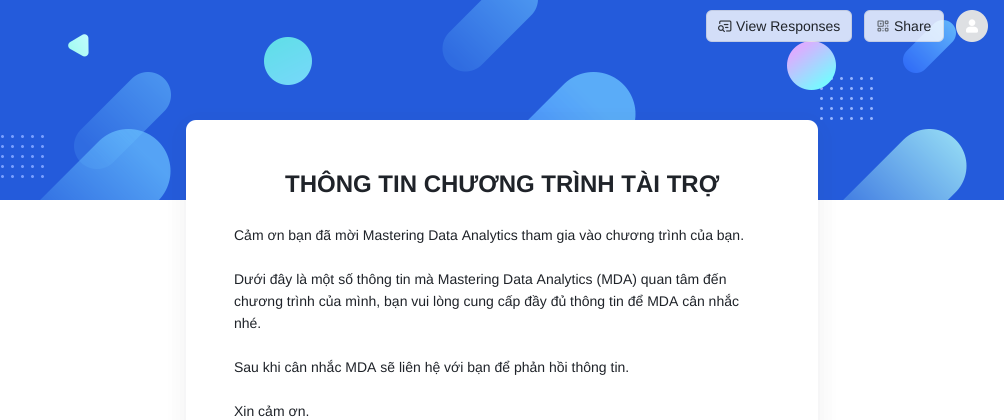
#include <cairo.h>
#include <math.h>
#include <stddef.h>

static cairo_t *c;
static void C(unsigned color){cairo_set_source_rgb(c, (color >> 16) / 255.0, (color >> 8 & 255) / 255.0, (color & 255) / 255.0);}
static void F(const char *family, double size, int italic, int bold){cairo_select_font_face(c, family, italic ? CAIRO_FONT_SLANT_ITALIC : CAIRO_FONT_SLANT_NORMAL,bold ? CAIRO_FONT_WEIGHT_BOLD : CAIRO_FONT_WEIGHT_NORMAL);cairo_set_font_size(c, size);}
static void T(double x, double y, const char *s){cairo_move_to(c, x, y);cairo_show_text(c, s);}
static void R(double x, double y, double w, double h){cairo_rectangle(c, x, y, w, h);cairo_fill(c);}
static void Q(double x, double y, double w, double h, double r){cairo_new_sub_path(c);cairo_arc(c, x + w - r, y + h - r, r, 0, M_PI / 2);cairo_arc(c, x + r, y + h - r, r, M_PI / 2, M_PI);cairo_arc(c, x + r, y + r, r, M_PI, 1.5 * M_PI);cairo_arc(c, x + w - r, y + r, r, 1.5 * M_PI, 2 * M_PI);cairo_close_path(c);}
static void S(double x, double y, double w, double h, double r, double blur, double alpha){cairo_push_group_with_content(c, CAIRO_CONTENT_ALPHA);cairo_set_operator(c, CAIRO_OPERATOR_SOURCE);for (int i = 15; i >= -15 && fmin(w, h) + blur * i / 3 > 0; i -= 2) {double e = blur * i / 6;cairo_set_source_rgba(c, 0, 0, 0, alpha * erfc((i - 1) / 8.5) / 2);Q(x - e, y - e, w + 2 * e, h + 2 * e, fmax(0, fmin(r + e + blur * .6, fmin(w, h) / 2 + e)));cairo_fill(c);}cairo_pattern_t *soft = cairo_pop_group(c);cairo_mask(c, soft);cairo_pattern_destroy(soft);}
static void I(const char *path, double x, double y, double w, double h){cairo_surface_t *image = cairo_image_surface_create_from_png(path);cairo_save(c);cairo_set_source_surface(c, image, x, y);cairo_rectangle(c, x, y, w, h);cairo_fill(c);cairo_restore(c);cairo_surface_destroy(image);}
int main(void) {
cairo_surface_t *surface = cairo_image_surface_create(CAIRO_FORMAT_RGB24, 1004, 420);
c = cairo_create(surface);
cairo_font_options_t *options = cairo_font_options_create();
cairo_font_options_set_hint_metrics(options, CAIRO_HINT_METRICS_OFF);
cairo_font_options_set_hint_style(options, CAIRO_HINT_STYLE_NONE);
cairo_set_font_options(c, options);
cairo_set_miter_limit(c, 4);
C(0xffffff);
cairo_paint(c);
C(0x245bdb);
R(0,0,1004,200);
I("1.png",1,0,966,200);
cairo_set_source_rgba(c,1,1,1,0.8);
Q(706,10,146,32,6);
cairo_fill(c);
Q(706.5,10.5,145,31,5.5);
cairo_set_source_rgba(c,0.122,0.137,0.161,0.1);
cairo_set_line_width(c,1);
cairo_stroke(c);
I("2.png",718,20,14,13);
F("Liberation Sans",14,0,0);
C(0x1f2329);
T(736,31,"View Responses");
cairo_set_source_rgba(c,1,1,1,0.8);
Q(864,10,80,32,6);
cairo_fill(c);
Q(864.5,10.5,79,31,5.5);
cairo_set_source_rgba(c,0.122,0.137,0.161,0.1);
cairo_stroke(c);
I("3.png",877,20,12,12);
C(0x1f2329);
T(894,31,"Share");
C(0xdee0e3);
cairo_new_path(c);
cairo_arc(c,972,26,16,0,2 * M_PI);
cairo_fill(c);
I("4.png",966,19,12,14);
C(0x1f2329);
S(186,126,632,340,10,12,.08);
C(0xffffff);
cairo_new_path(c);
cairo_move_to(c,196,120);
cairo_line_to(c,808,120);
cairo_curve_to(c,813.5,120,818,124.5,818,130);
cairo_line_to(c,818,420);
cairo_line_to(c,186,420);
cairo_line_to(c,186,130);
cairo_curve_to(c,186,124.5,190.5,120,196,120);
cairo_close_path(c);
cairo_fill(c);
F("Liberation Sans",24,0,1);
C(0x1f2329);
T(285,192,"THÔNG TIN CHƯƠNG TRÌNH TÀI TRỢ");
F("Liberation Sans",14,0,0);
T(234,240,"Cảm ơn bạn đã mời Mastering Data Analytics tham gia vào chương trình của bạn.");
T(234,284,"Dưới đây là một số thông tin mà Mastering Data Analytics (MDA) quan tâm đến");
T(234,306,"chương trình của mình, bạn vui lòng cung cấp đầy đủ thông tin để MDA cân nhắc");
T(234,328,"nhé.");
T(234,372,"Sau khi cân nhắc MDA sẽ liên hệ với bạn để phản hồi thông tin.");
T(234,416,"Xin cảm ơn.");
cairo_surface_write_to_png(surface, "o.png");
cairo_font_options_destroy(options);
cairo_destroy(c);
cairo_surface_destroy(surface);
return 0;
}
